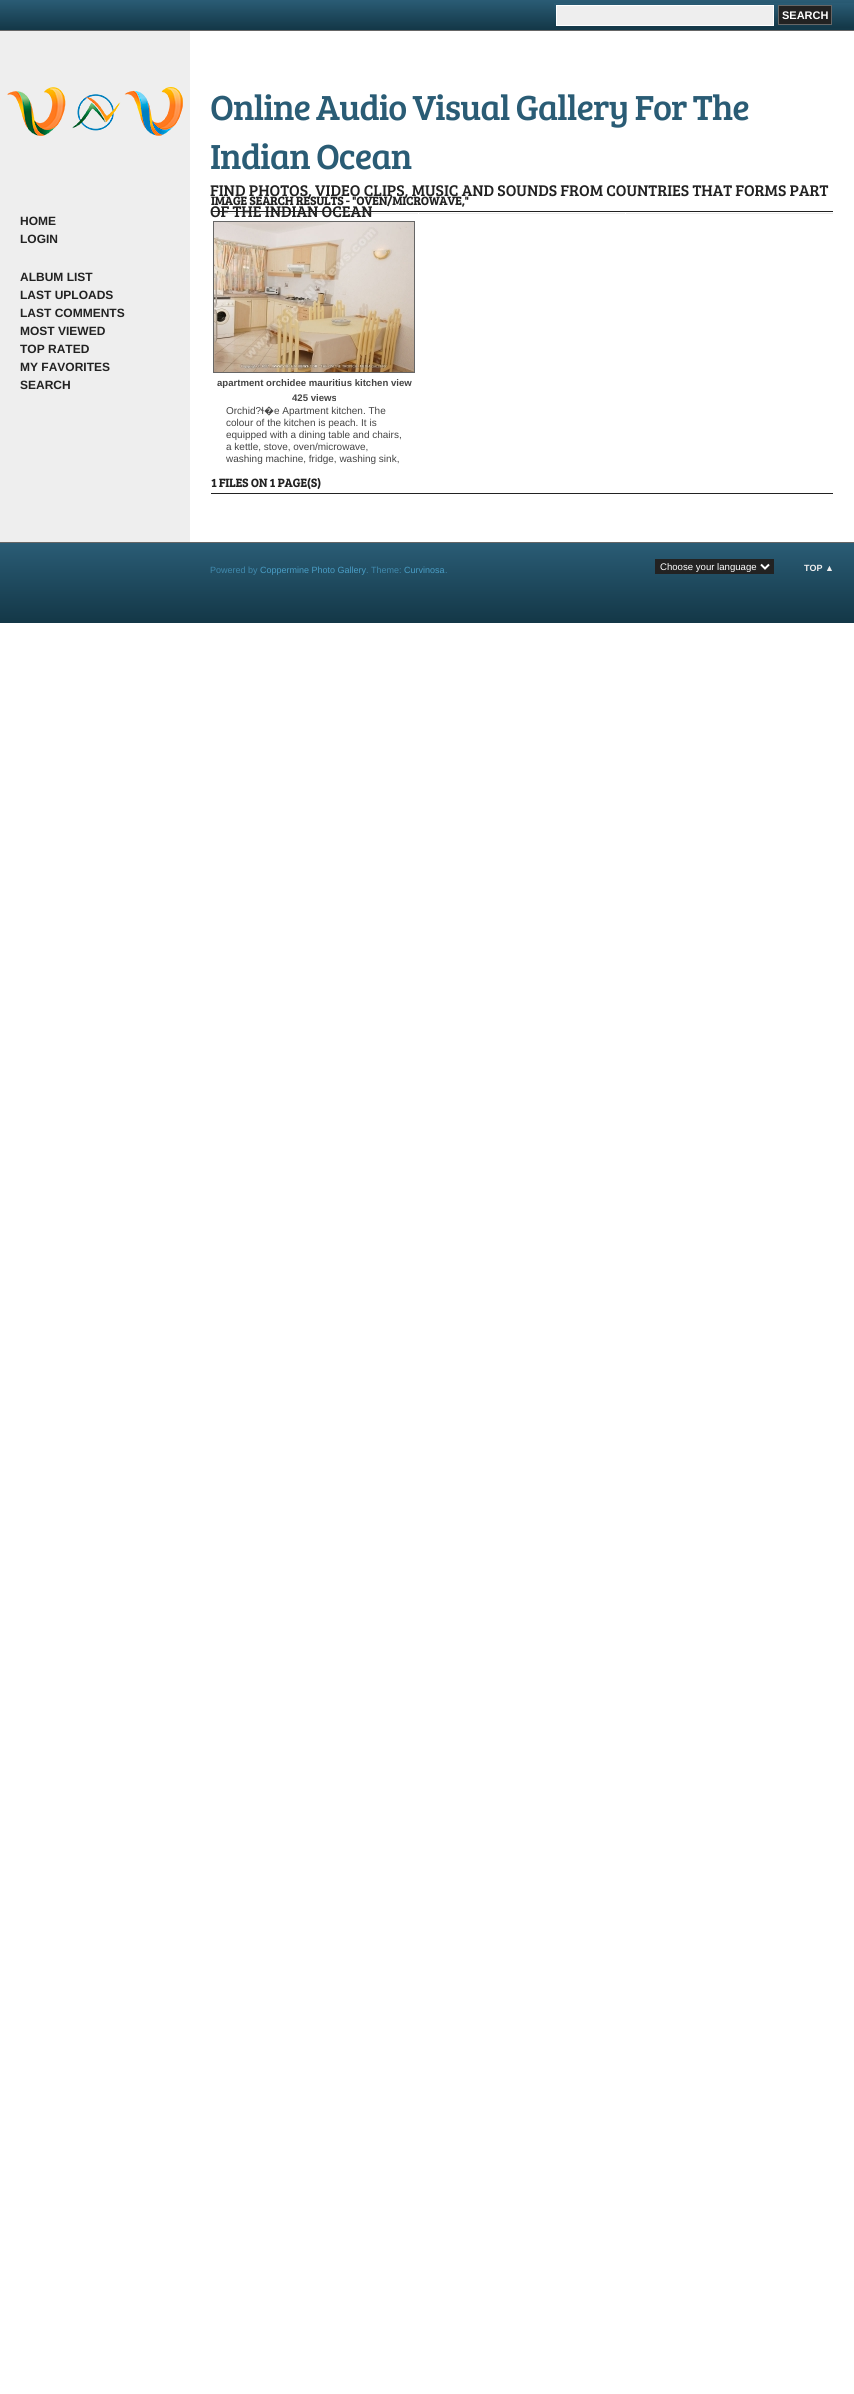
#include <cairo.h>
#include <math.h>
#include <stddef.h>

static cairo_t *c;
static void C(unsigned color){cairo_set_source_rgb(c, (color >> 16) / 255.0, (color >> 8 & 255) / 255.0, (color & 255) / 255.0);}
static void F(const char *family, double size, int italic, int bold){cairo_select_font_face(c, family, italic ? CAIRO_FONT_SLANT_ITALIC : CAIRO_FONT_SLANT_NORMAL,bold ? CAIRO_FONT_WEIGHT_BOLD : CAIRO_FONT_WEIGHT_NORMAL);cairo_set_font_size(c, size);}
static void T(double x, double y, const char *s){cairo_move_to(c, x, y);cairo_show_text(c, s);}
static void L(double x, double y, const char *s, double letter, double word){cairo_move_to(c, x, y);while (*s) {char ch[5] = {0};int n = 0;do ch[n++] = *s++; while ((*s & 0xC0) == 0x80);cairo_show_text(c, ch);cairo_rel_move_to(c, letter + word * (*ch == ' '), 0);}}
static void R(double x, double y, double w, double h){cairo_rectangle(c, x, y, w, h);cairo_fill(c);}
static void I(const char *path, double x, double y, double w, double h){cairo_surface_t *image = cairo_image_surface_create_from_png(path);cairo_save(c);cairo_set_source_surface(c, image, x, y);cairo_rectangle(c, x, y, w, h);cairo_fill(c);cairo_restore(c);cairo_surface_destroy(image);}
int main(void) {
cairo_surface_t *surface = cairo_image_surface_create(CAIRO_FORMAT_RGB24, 854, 2394);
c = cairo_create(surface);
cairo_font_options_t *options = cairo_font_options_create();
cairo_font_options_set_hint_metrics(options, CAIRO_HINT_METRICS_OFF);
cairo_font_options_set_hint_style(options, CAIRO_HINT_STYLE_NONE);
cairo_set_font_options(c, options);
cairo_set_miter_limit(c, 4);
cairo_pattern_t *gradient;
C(0xffffff);
cairo_paint(c);
gradient = cairo_pattern_create_linear(427,0,427,30);
cairo_pattern_add_color_stop_rgba(gradient,0,0.165,0.361,0.459,1);
cairo_pattern_add_color_stop_rgba(gradient,1,0.075,0.216,0.278,1);
cairo_set_source(c,gradient);
cairo_pattern_destroy(gradient);
R(0,0,854,30);
C(0x666666);
R(0,30,854,1);
gradient = cairo_pattern_create_linear(704,3,704,28);
cairo_pattern_add_color_stop_rgba(gradient,0,0.165,0.361,0.459,1);
cairo_pattern_add_color_stop_rgba(gradient,1,0.075,0.216,0.278,1);
cairo_set_source(c,gradient);
cairo_pattern_destroy(gradient);
R(554,3,300,25);
C(0xeeeeee);
cairo_rectangle(c,556.5,5.5,217,20);
cairo_fill_preserve(c);
C(0xffffff);
cairo_set_line_width(c,1);
cairo_stroke(c);
C(0x222222);
cairo_rectangle(c,778.5,5.5,53,19);
cairo_fill_preserve(c);
C(0x666666);
cairo_stroke(c);
F("Liberation Sans",11,0,1);
C(0xffffff);
T(782,19,"SEARCH");
C(0xeeeeee);
R(0,31,190,511);
I("1.png",7,87,176,49);
F("Liberation Sans",12,0,1);
C(0x222222);
T(20,225,"HOME");
T(20,243,"LOGIN");
T(20,281,"ALBUM LIST");
T(20,299,"LAST UPLOADS");
T(20,317,"LAST COMMENTS");
T(20,335,"MOST VIEWED");
T(20,353,"TOP RATED");
T(20,371,"MY FAVORITES");
T(20,389,"SEARCH");
F("Bree Serif",36,0,0);
C(0x2a5c75);
L(210,120,"Online Audio Visual Gallery For The",-1,0);
L(210,169,"Indian Ocean",-1,0);
F("Bree Serif",16,0,0);
C(0x222222);
T(210,196,"FIND PHOTOS, VIDEO CLIPS, MUSIC AND SOUNDS FROM COUNTRIES THAT FORMS PART");
R(211,211,622,1);
C(0xeeeeee);
R(211,213,207,1);
C(0x222222);
T(210,217,"OF THE INDIAN OCEAN");
F("Bree Serif",12,0,1);
T(211,205,"IMAGE SEARCH RESULTS - \"OVEN/MICROWAVE,\"");
C(0xeeeeee);
R(419,213,206,1);
R(626,213,207,1);
cairo_rectangle(c,213.5,221.5,201,151);
C(0x666666);
cairo_stroke(c);
I("2.png",214,222,200,150);
F("Liberation Sans",9.6,0,1);
C(0x444444);
T(217,386,"apartment orchidee mauritius kitchen view");
T(292,401,"425 views");
F("Liberation Sans",10,0,0);
T(226,414,"Orchid?ɬ");
F("Noto Sans",10,0,0);
T(264,414,"�");
F("Liberation Sans",10,0,0);
T(274,414,"e Apartment kitchen. The");
T(226,426,"colour of the kitchen is peach. It is");
T(226,438,"equipped with a dining table and chairs,");
T(226,450,"a kettle, stove, oven/microwave,");
T(226,462,"washing machine, fridge, washing sink,");
C(0x222222);
R(211,493,622,1);
F("Bree Serif",12,0,1);
T(211,487,"1 FILES ON 1 PAGE(S)");
gradient = cairo_pattern_create_linear(427,543,427,623);
cairo_pattern_add_color_stop_rgba(gradient,0,0.165,0.361,0.459,1);
cairo_pattern_add_color_stop_rgba(gradient,1,0.075,0.216,0.278,1);
cairo_set_source(c,gradient);
cairo_pattern_destroy(gradient);
R(0,543,854,80);
C(0x666666);
R(0,542,854,1);
F("Liberation Sans",9,0,0);
C(0x4089ad);
T(210,573,"Powered by");
C(0x499dc5);
T(260,573,"Coppermine Photo Gallery");
C(0x4089ad);
T(366,573,". Theme:");
C(0x499dc5);
T(404,573,"Curvinosa");
C(0x4089ad);
T(445,573,".");
C(0x222222);
R(655,559,119,15);
cairo_new_path(c);
cairo_move_to(c,761,564.5);
cairo_line_to(c,765,568.5);
cairo_line_to(c,769,564.5);
C(0xffffff);
cairo_set_line_width(c,2);
cairo_stroke(c);
F("Liberation Sans",9.6,0,0);
T(660,570,"Choose your language");
F("Liberation Sans",9,0,1);
C(0xeeeeee);
T(804,571,"TOP ▲");
cairo_surface_write_to_png(surface, "o.png");
cairo_font_options_destroy(options);
cairo_destroy(c);
cairo_surface_destroy(surface);
return 0;
}
